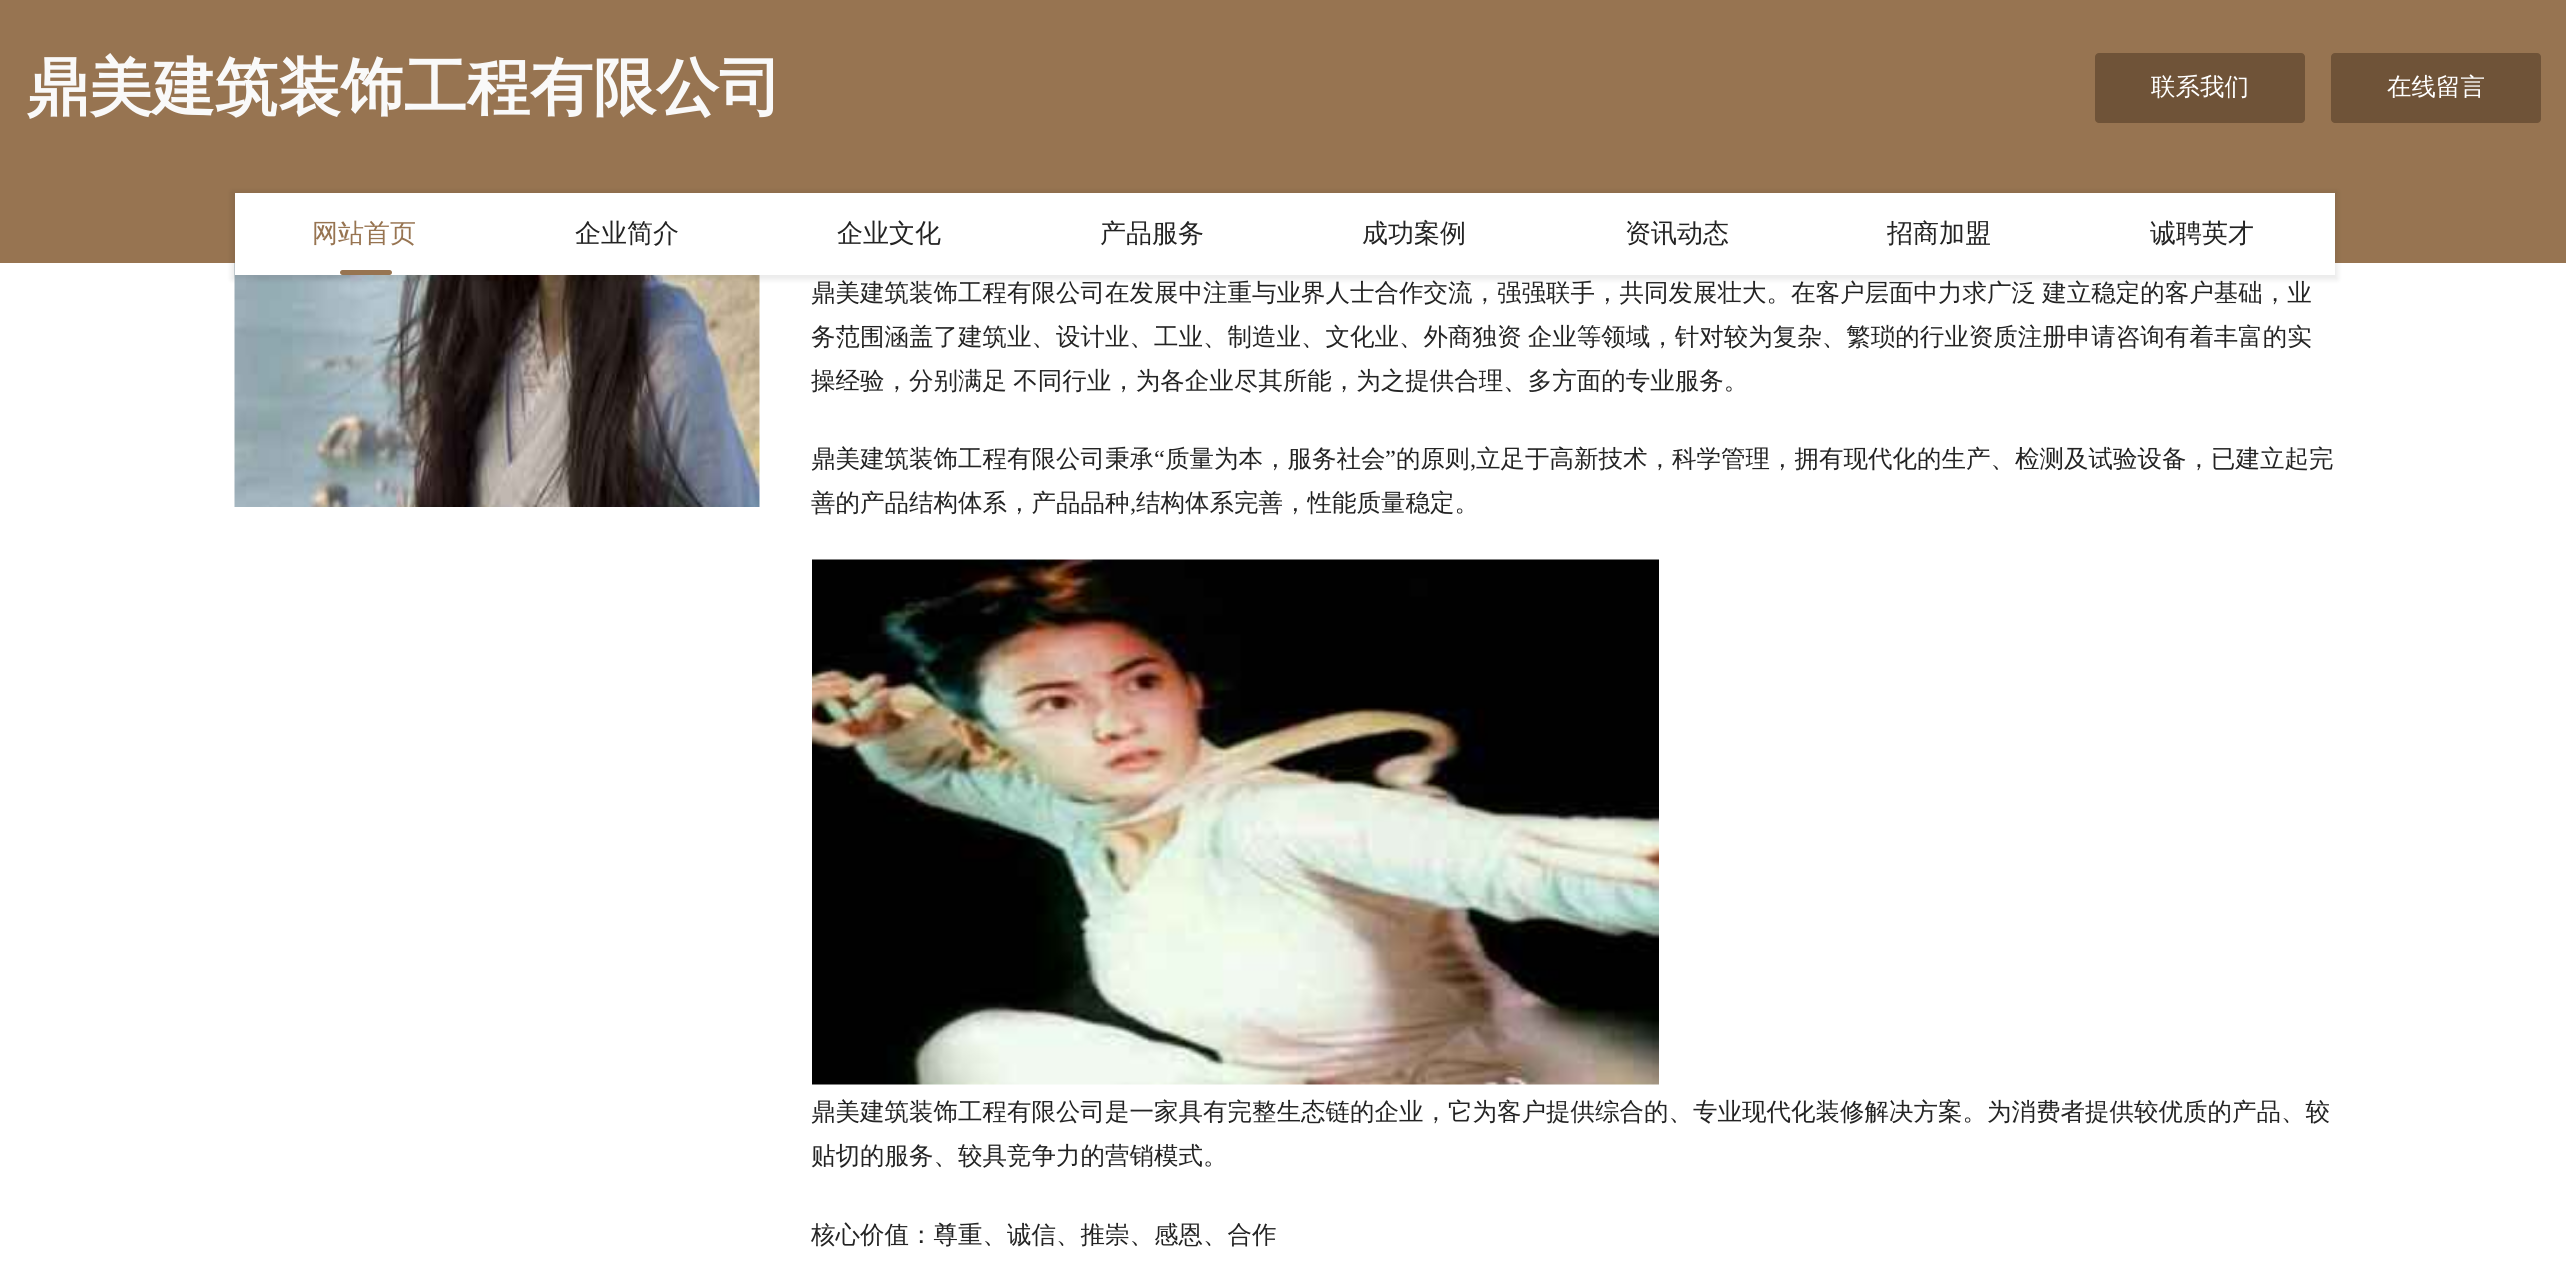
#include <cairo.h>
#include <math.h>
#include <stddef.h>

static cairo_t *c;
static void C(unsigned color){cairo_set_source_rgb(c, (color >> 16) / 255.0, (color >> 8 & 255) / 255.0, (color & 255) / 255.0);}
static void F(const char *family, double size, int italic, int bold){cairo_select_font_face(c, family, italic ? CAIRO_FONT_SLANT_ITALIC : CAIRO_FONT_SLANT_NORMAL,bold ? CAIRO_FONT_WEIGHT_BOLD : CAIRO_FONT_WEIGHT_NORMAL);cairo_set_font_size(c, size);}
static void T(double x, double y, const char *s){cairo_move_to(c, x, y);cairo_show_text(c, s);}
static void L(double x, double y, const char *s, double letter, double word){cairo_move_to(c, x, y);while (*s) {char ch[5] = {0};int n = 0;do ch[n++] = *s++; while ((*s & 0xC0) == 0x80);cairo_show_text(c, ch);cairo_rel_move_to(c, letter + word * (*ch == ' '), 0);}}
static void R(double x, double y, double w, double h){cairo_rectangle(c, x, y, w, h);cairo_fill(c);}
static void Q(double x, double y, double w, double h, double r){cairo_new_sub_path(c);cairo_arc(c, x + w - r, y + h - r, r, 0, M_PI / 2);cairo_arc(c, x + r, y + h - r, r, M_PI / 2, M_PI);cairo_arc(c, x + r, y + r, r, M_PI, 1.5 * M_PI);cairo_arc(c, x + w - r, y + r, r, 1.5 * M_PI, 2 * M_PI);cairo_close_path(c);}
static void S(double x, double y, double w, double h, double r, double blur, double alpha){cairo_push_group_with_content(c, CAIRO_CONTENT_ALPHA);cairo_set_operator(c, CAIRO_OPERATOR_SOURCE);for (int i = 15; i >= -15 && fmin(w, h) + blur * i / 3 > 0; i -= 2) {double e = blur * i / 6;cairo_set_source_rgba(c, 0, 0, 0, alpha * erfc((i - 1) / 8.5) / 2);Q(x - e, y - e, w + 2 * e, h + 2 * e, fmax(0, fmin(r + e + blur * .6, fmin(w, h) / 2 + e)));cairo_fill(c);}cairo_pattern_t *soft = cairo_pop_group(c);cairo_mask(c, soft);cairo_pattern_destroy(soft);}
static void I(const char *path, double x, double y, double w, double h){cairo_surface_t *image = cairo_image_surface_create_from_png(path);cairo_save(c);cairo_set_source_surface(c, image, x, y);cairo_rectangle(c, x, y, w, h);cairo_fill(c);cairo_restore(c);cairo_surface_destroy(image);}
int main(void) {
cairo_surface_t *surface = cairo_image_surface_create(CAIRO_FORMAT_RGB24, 2566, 1280);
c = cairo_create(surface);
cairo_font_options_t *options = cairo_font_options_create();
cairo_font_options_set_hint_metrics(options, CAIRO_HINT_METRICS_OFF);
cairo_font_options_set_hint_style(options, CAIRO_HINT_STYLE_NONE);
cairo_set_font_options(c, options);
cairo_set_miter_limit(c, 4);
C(0xffffff);
cairo_paint(c);
C(0x977451);
R(0,0,2566,263);
F("WenQuanYi Zen Hei",63,0,1);
C(0xf9f9f9);
T(26,109,"鼎美建筑装饰工程有限公司");
C(0x6f5338);
Q(2095,53,210,70,4);
cairo_fill(c);
F("WenQuanYi Zen Hei Medium",24.5,0,0);
C(0xffffff);
T(2151,95,"联系我们");
C(0x6f5338);
Q(2331,53,210,70,4);
cairo_fill(c);
C(0xffffff);
T(2387,95,"在线留言");
I("1.png",234,263,526,244);
C(0x000000);
S(231,191,2107,89,0,2.5,.08);
C(0xffffff);
R(235,193,2100,82);
F("WenQuanYi Zen Hei Medium",26,0,0);
C(0x977451);
T(312,242,"网站首页");
Q(340,270,52,5,2.5);
cairo_fill(c);
C(0x232323);
T(575,242,"企业简介");
T(837,242,"企业文化");
T(1100,242,"产品服务");
T(1362,242,"成功案例");
T(1625,242,"资讯动态");
T(1887,242,"招商加盟");
T(2150,242,"诚聘英才");
F("WenQuanYi Zen Hei Medium",24.5,0,0);
L(811,301,"鼎美建筑装饰工程有限公司在发展中注重与业界人士合作交流，强强联手，共同发展壮大。在客户层面中力求广泛 建立稳定的客户基础，业",0,-1);
L(811,345,"务范围涵盖了建筑业、设计业、工业、制造业、文化业、外商独资 企业等领域，针对较为复杂、繁琐的行业资质注册申请咨询有着丰富的实",0,-1);
L(811,389,"操经验，分别满足 不同行业，为各企业尽其所能，为之提供合理、多方面的专业服务。",0,-1);
T(811,467,"鼎美建筑装饰工程有限公司秉承");
F("Liberation Serif",24.5,0,0);
T(1154,467,"“");
F("WenQuanYi Zen Hei Medium",24.5,0,0);
T(1165,467,"质量为本，服务社会");
F("Liberation Serif",24.5,0,0);
T(1385,467,"”");
F("WenQuanYi Zen Hei Medium",24.5,0,0);
T(1396,467,"的原则");
T(1476,467,"立足于高新技术，科学管理，拥有现代化的生产、检测及试验设备，已建立起完");
F("Liberation Serif",24.5,0,0);
T(1470,467,",");
F("WenQuanYi Zen Hei Medium",24.5,0,0);
T(811,511,"善的产品结构体系，产品品种");
F("Liberation Serif",24.5,0,0);
T(1130,511,",");
F("WenQuanYi Zen Hei Medium",24.5,0,0);
T(1136,511,"结构体系完善，性能质量稳定。");
I("2.png",812,559,847,526);
T(811,1120,"鼎美建筑装饰工程有限公司是一家具有完整生态链的企业，它为客户提供综合的、专业现代化装修解决方案。为消费者提供较优质的产品、较");
T(811,1164,"贴切的服务、较具竞争力的营销模式。");
T(811,1243,"核心价值：尊重、诚信、推崇、感恩、合作");
cairo_surface_write_to_png(surface, "o.png");
cairo_font_options_destroy(options);
cairo_destroy(c);
cairo_surface_destroy(surface);
return 0;
}
